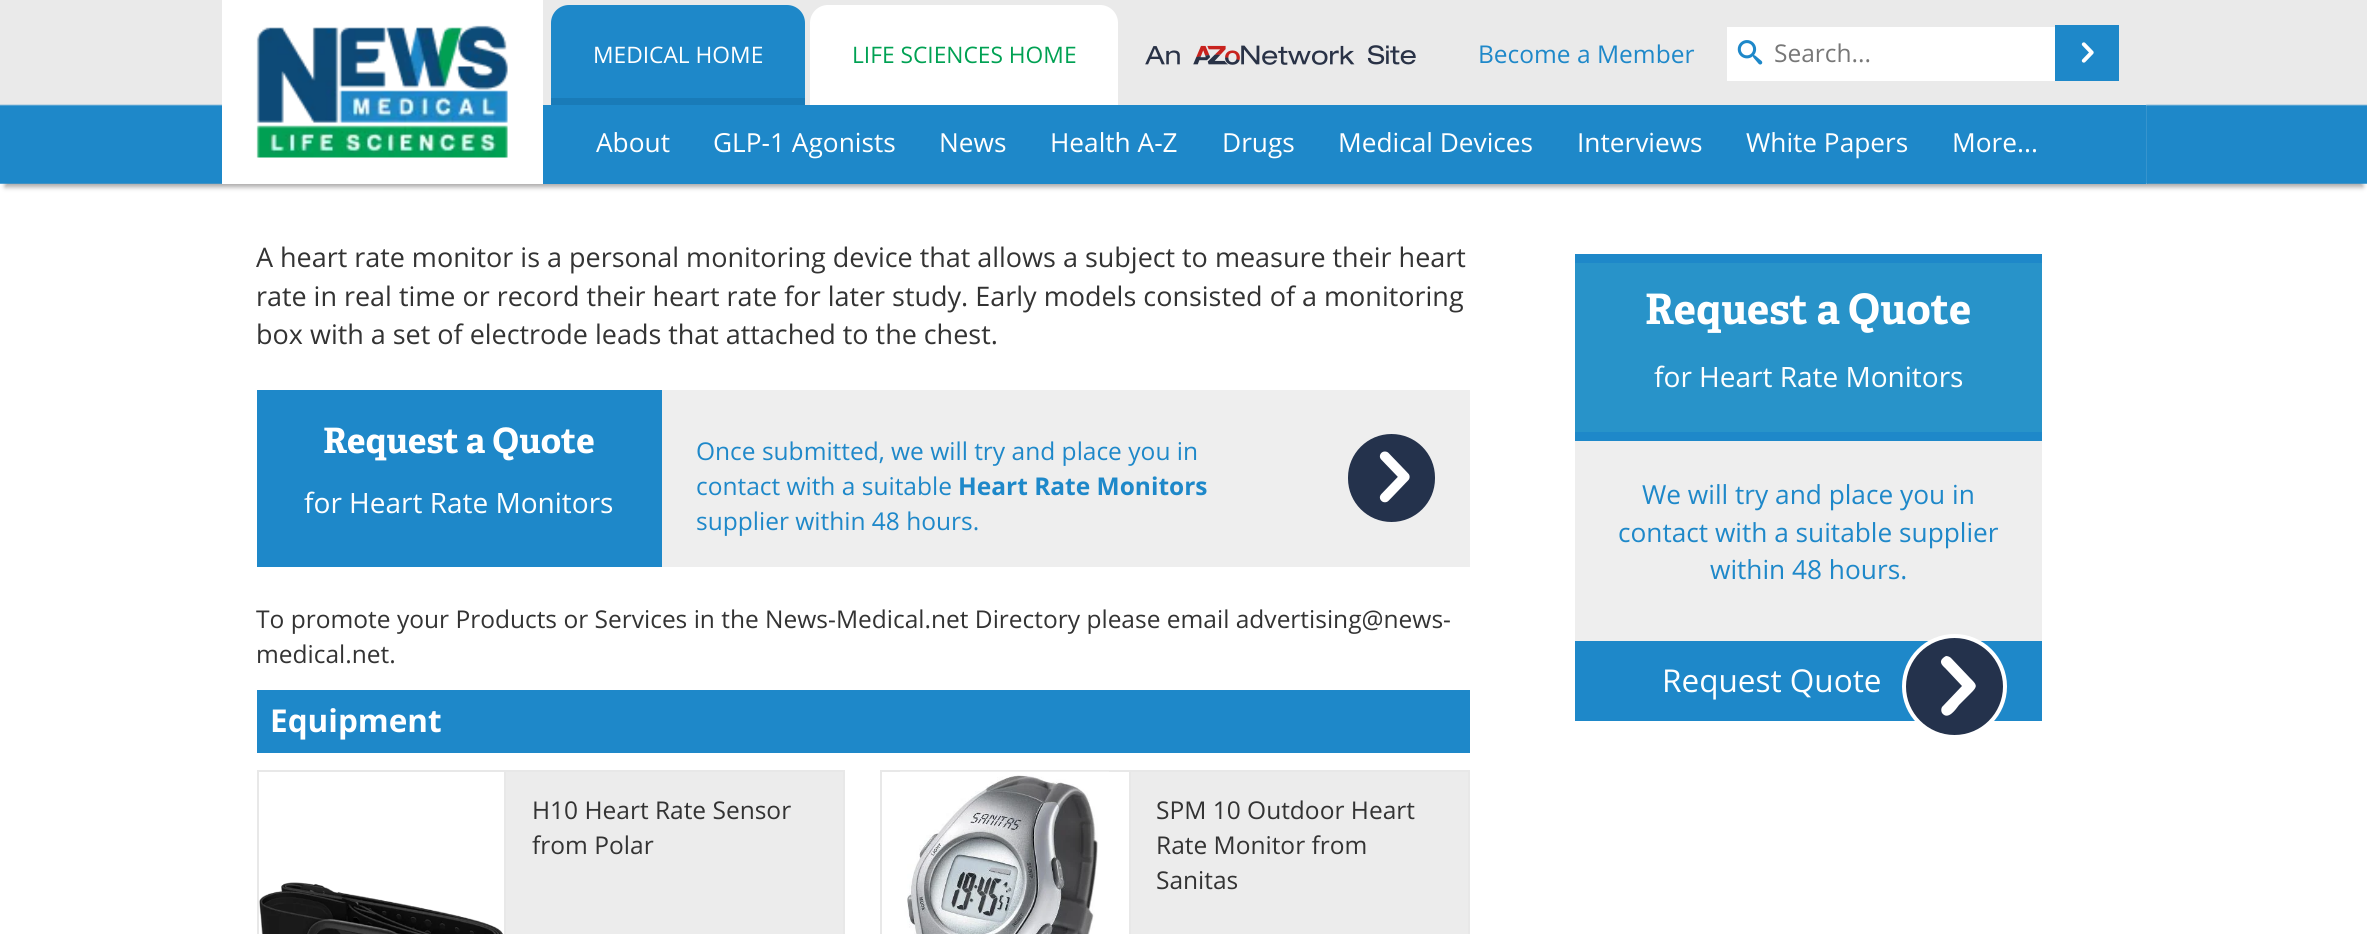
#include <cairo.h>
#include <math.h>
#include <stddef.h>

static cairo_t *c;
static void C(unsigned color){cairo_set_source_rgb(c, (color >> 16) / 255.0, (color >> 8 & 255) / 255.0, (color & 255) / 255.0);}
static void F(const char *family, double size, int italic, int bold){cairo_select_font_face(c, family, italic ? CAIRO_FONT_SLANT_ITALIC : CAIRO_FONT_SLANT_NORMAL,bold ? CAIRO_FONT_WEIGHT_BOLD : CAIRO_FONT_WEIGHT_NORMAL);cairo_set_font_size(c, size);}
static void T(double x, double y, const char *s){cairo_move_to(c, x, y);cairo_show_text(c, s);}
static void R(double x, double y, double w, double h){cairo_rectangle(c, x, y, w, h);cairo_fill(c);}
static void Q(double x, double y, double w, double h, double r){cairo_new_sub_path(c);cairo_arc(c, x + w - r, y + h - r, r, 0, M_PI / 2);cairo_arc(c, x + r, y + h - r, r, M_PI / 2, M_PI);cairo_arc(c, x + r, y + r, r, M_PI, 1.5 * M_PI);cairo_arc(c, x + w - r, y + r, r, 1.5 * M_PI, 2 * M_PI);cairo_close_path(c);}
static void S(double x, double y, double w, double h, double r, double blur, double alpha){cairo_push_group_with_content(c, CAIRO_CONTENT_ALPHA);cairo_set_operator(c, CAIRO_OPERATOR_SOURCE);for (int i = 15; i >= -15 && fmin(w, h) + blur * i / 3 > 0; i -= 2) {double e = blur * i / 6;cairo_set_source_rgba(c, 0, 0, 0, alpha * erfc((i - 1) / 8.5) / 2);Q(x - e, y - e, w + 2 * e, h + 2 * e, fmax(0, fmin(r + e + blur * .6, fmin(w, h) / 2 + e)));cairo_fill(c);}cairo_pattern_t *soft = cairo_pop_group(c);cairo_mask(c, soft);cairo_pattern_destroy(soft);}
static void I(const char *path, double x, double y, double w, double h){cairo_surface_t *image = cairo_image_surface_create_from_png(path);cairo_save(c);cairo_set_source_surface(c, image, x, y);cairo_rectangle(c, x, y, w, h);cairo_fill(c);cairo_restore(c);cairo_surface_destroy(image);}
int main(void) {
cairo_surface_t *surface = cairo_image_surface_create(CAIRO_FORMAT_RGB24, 2367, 934);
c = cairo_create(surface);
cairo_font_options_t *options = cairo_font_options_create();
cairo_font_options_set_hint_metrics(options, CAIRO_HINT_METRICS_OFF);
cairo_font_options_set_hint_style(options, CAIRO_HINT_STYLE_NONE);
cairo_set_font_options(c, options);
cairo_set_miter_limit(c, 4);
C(0xffffff);
cairo_paint(c);
C(0xa9a7a7);
S(5,14,2358,173,0,2.5,1);
I("1.png",0,0,2367,184);
C(0xeaeaea);
R(2146,104,1,80);
I("6.png",221,104,1927,80);
C(0xffffff);
R(222,0,321,184);
I("2.png",256,25,252,133);
C(0xeaeaea);
R(543,104,1603,1);
C(0x1e88c9);
cairo_new_path(c);
cairo_move_to(c,569,5);
cairo_line_to(c,787,5);
cairo_curve_to(c,797,5,805,13,805,23);
cairo_line_to(c,805,105);
cairo_line_to(c,551,105);
cairo_line_to(c,551,23);
cairo_curve_to(c,551,13,559,5,569,5);
cairo_close_path(c);
cairo_fill(c);
C(0x197bb8);
R(551,98,254,7);
F("Open Sans",22.75,0,0);
C(0xffffff);
T(593,63,"MEDICAL HOME");
cairo_new_path(c);
cairo_move_to(c,828,5);
cairo_line_to(c,1100,5);
cairo_curve_to(c,1110,5,1118,13,1118,23);
cairo_line_to(c,1118,105);
cairo_line_to(c,810,105);
cairo_line_to(c,810,23);
cairo_curve_to(c,810,13,818,5,828,5);
cairo_close_path(c);
cairo_fill(c);
C(0x00a153);
T(852,63,"LIFE SCIENCES HOME");
I("3.png",1145,45,271,20);
F("Open Sans",24.5,0,0);
C(0x1e88c9);
T(1478,63,"Become a Member");
C(0xffffff);
R(1727,27,328,54);
I("4.png",1737,40,26,25);
C(0x777777);
T(1774,62,"Search...");
C(0x1e88c9);
R(2055,25,64,56);
I("5.png",2081,42,13,21);
R(543,105,1603,79);
F("Open Sans",26.25,0,0);
C(0xffffff);
T(596,152,"About");
T(713,152,"GLP-1 Agonists");
T(939,152,"News");
T(1050,152,"Health A-Z");
T(1222,152,"Drugs");
T(1338,152,"Medical Devices");
T(1577,152,"Interviews");
T(1746,152,"White Papers");
T(1952,152,"More...");
F("Open Sans",26.95,0,0);
C(0x333333);
T(256,267,"A heart rate monitor is a personal monitoring device that allows a subject to measure their heart");
T(256,306,"rate in real time or record their heart rate for later study. Early models consisted of a monitoring");
T(256,344,"box with a set of electrode leads that attached to the chest.");
C(0xeeeeee);
R(662,390,808,177);
C(0x1e88c9);
R(257,390,405,177);
F("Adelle",35,0,1);
C(0xffffff);
T(323,453,"Request a Quote");
F("Open Sans",28,0,0);
T(304,513,"for Heart Rate Monitors");
F("Open Sans",24.5,0,0);
C(0x1e88c9);
T(696,460,"Once submitted, we will try and place you in");
T(696,495,"contact with a suitable");
F("Open Sans",24.5,0,1);
T(958,495,"Heart Rate Monitors");
F("Open Sans",24.5,0,0);
T(696,530,"supplier within 48 hours.");
C(0x24324c);
Q(1348,434,87,88,43.5);
cairo_fill(c);
I("7.png",1379,451,31,52);
C(0x333333);
T(256,628,"To promote your Products or Services in the News-Medical.net Directory please email advertising@news-");
T(256,663,"medical.net.");
C(0x1e88c9);
R(257,690,1213,63);
F("Open Sans",31.5,0,1);
C(0xffffff);
T(270,732,"Equipment");
C(0xe8e8e8);
R(257,770,247,2);
R(257,770,2,164);
I("8.png",259,882,244,52);
C(0xececec);
cairo_rectangle(c,505,771,339,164);
cairo_fill_preserve(c);
C(0xe8e8e8);
cairo_stroke(c);
F("Open Sans",24.5,0,0);
C(0x333333);
T(532,819,"H10 Heart Rate Sensor");
T(532,854,"from Polar");
C(0xe8e8e8);
R(880,770,249,2);
R(880,770,2,164);
I("9.png",900,771,209,163);
C(0xececec);
cairo_rectangle(c,1130,771,339,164);
cairo_fill_preserve(c);
C(0xe8e8e8);
cairo_stroke(c);
C(0x333333);
T(1156,819,"SPM 10 Outdoor Heart");
T(1156,854,"Rate Monitor from");
T(1156,889,"Sanitas");
C(0xeeeeee);
R(1575,441,467,200);
C(0x2893c9);
R(1575,263,467,169);
C(0x1e88c9);
R(1575,254,467,9);
R(1575,432,467,9);
F("Adelle",42,0,1);
C(0xffffff);
T(1645,324,"Request a Quote");
F("Open Sans",28,0,0);
T(1654,387,"for Heart Rate Monitors");
F("Open Sans",26.25,0,0);
C(0x1e88c9);
T(1642,504,"We will try and place you in");
T(1618,542,"contact with a suitable supplier");
T(1710,579,"within 48 hours.");
R(1575,641,467,80);
F("Open Sans",31.5,0,0);
C(0xffffff);
T(1662,692,"Request Quote");
C(0x24324c);
cairo_new_path(c);
cairo_arc(c,1954.5,686.5,50.5,0,2 * M_PI);
cairo_fill_preserve(c);
C(0xffffff);
cairo_set_line_width(c,4);
cairo_stroke(c);
cairo_new_path(c);
cairo_move_to(c,1951,658);
cairo_line_to(c,1970,678);
cairo_curve_to(c,1977,685,1978,686,1971,693);
cairo_line_to(c,1959,705);
cairo_curve_to(c,1956,709,1948,721,1942,713);
cairo_curve_to(c,1941,711,1941,709,1942,707);
cairo_line_to(c,1962,686);
cairo_line_to(c,1946,669);
cairo_curve_to(c,1943,666,1939,663,1942,659);
cairo_curve_to(c,1943,658,1944,657,1946,656);
cairo_curve_to(c,1948,656,1950,657,1951,658);
cairo_close_path(c);
cairo_fill(c);
cairo_surface_write_to_png(surface, "o.png");
cairo_font_options_destroy(options);
cairo_destroy(c);
cairo_surface_destroy(surface);
return 0;
}
